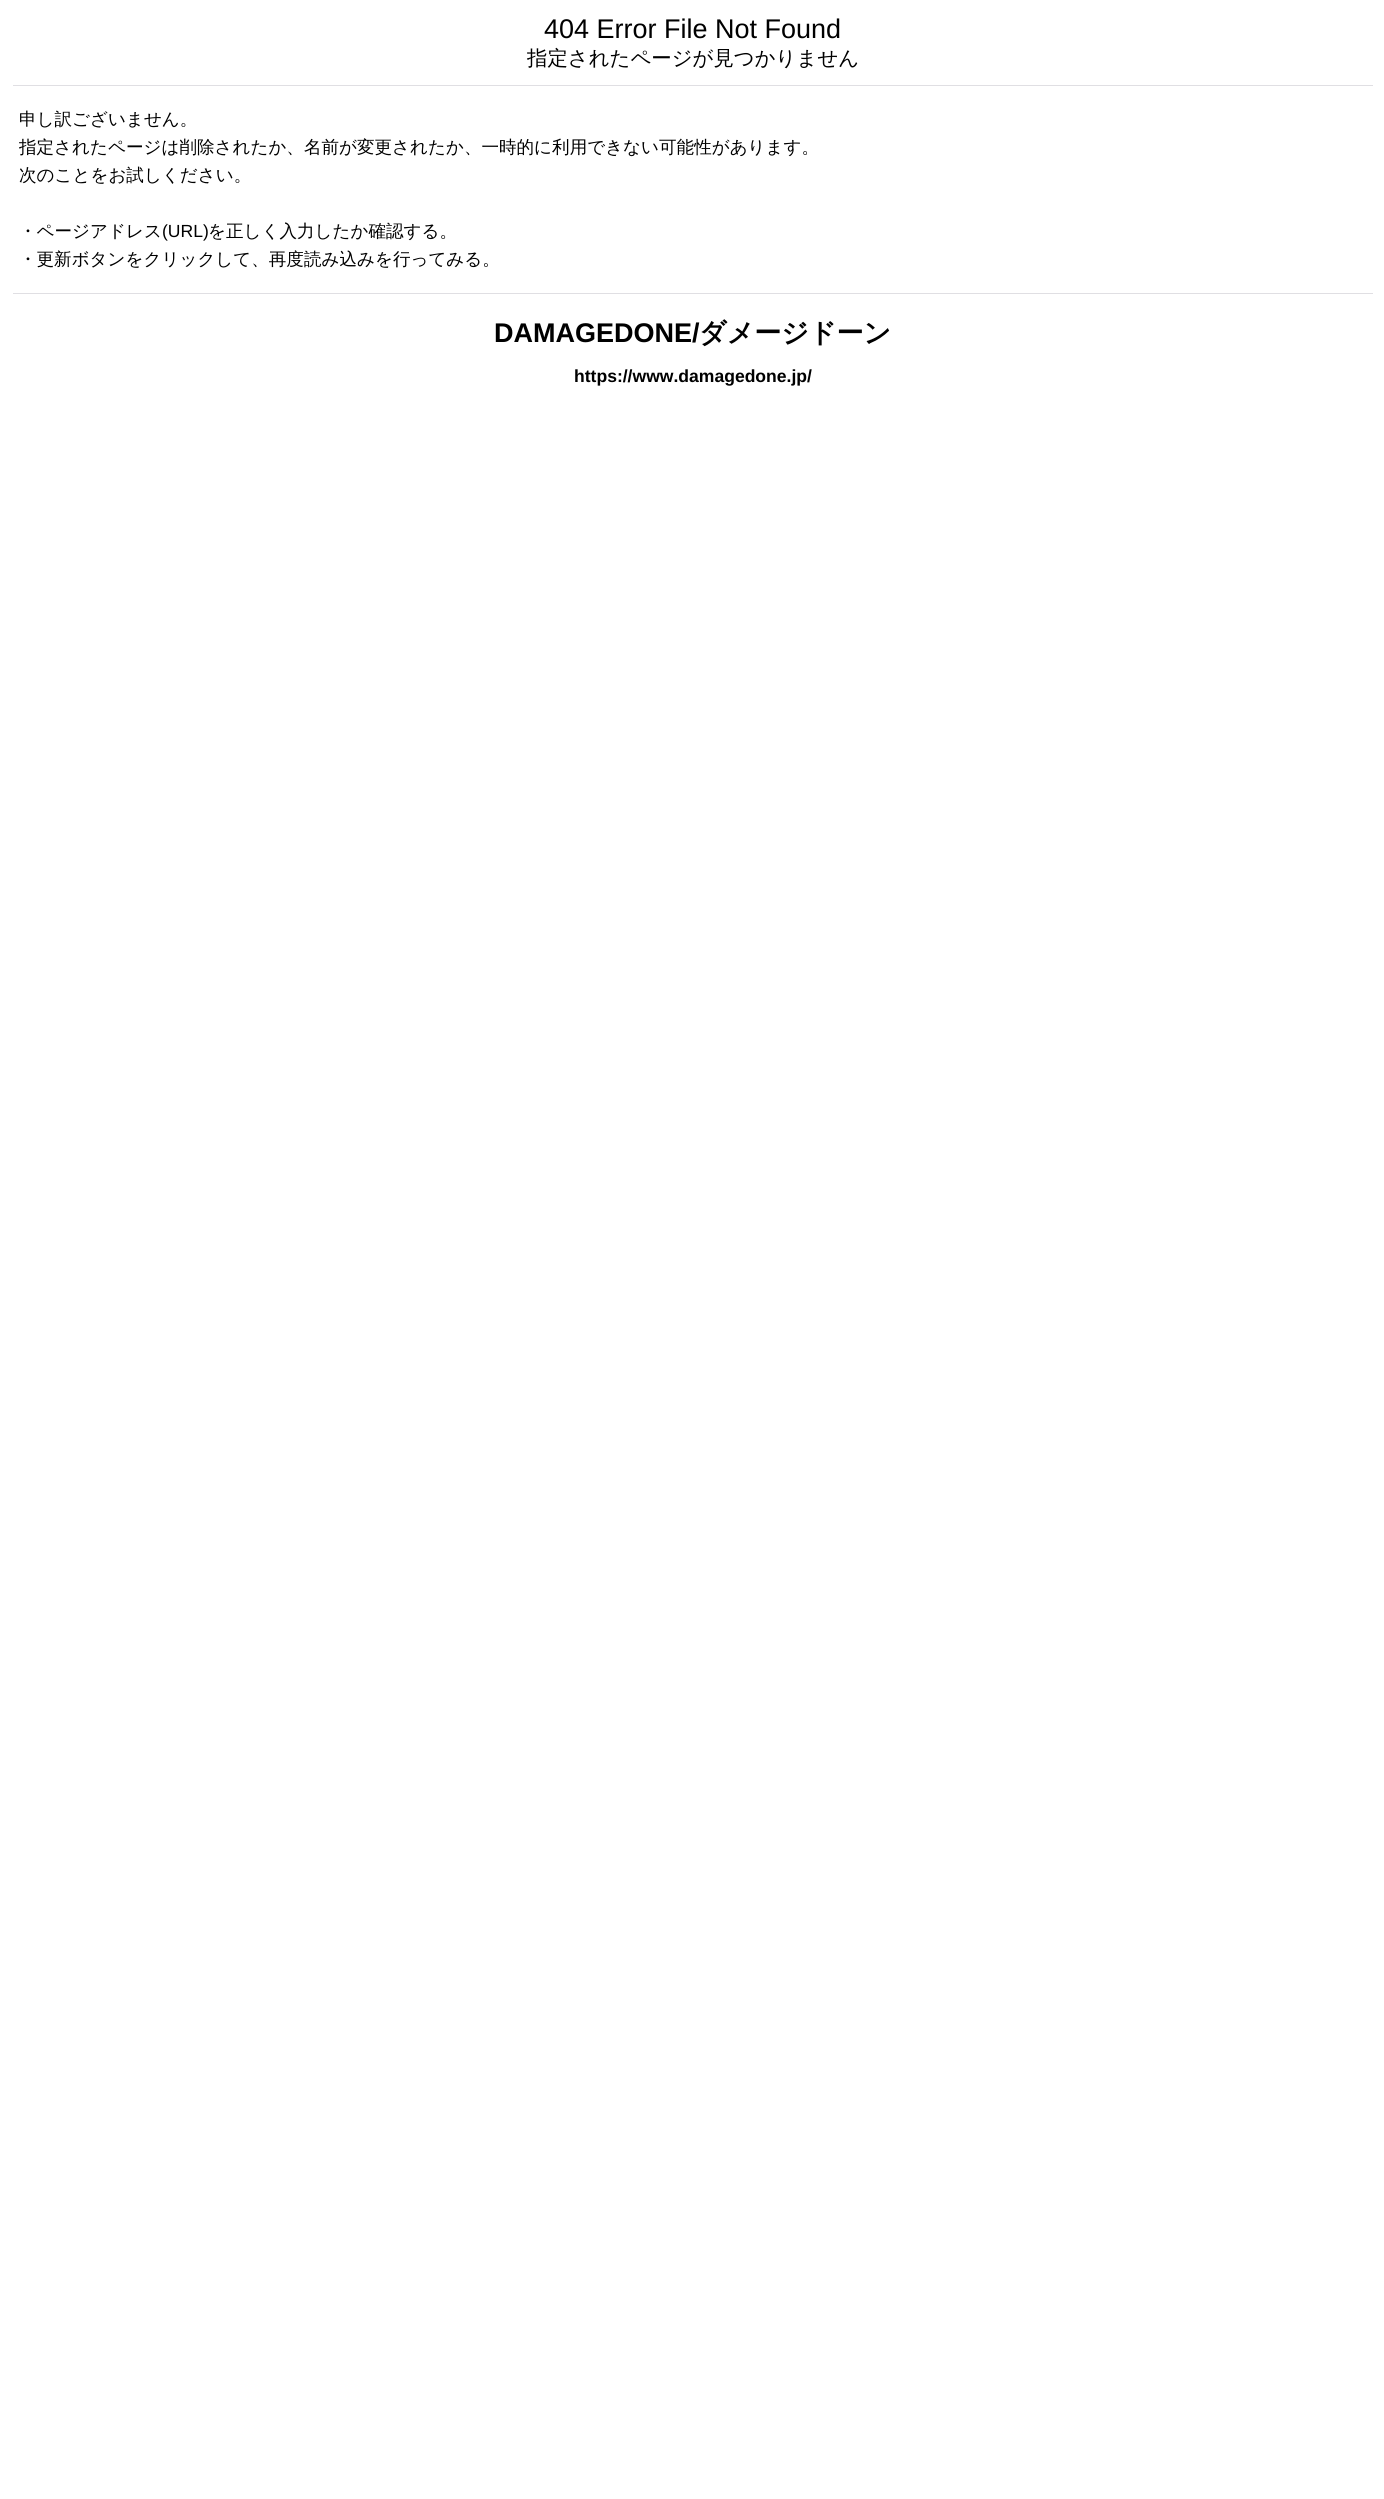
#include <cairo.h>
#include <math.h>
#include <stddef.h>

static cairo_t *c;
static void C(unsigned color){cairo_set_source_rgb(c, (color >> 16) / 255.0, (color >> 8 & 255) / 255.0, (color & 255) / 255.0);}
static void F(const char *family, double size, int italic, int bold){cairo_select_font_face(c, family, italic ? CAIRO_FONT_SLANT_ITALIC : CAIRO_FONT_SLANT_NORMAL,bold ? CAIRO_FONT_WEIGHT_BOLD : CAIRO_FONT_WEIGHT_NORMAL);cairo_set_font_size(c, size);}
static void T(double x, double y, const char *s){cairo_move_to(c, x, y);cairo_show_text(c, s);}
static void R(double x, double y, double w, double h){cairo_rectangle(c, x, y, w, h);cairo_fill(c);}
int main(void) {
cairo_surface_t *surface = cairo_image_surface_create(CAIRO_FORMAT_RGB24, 1384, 2499);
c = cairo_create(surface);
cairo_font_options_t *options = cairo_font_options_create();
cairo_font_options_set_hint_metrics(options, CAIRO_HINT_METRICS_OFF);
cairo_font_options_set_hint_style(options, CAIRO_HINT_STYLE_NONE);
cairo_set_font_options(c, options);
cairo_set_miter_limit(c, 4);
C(0xffffff);
cairo_paint(c);
F("Liberation Sans",27,0,0);
C(0x000000);
T(544,38,"404 Error File Not Found");
F("WenQuanYi Zen Hei Medium",20.4,0,0);
T(527,65,"指定されたページが見つかりません");
C(0xe0dfe3);
R(13,85,1360,1);
R(13,293,1360,1);
F("WenQuanYi Zen Hei Medium",17.55,0,0);
C(0x000000);
T(19,125,"申し訳ございません。");
T(19,153,"指定されたページは削除されたか、名前が変更されたか、一時的に利用できない可能性があります。");
T(19,181,"次のことをお試しください。");
T(19,237,"・ページアドレス");
F("Liberation Sans",17.55,0,0);
T(162,237,"(URL)");
F("WenQuanYi Zen Hei Medium",17.55,0,0);
T(208,237,"を正しく入力したか確認する。");
T(19,265,"・更新ボタンをクリックして、再度読み込みを行ってみる。");
F("Liberation Sans",27,0,1);
T(494,342,"DAMAGEDONE/");
F("WenQuanYi Zen Hei",27,0,1);
T(699,342,"ダメージドーン");
F("Liberation Sans",17.55,0,1);
T(574,382,"https://www.damagedone.jp/");
cairo_surface_write_to_png(surface, "o.png");
cairo_font_options_destroy(options);
cairo_destroy(c);
cairo_surface_destroy(surface);
return 0;
}
